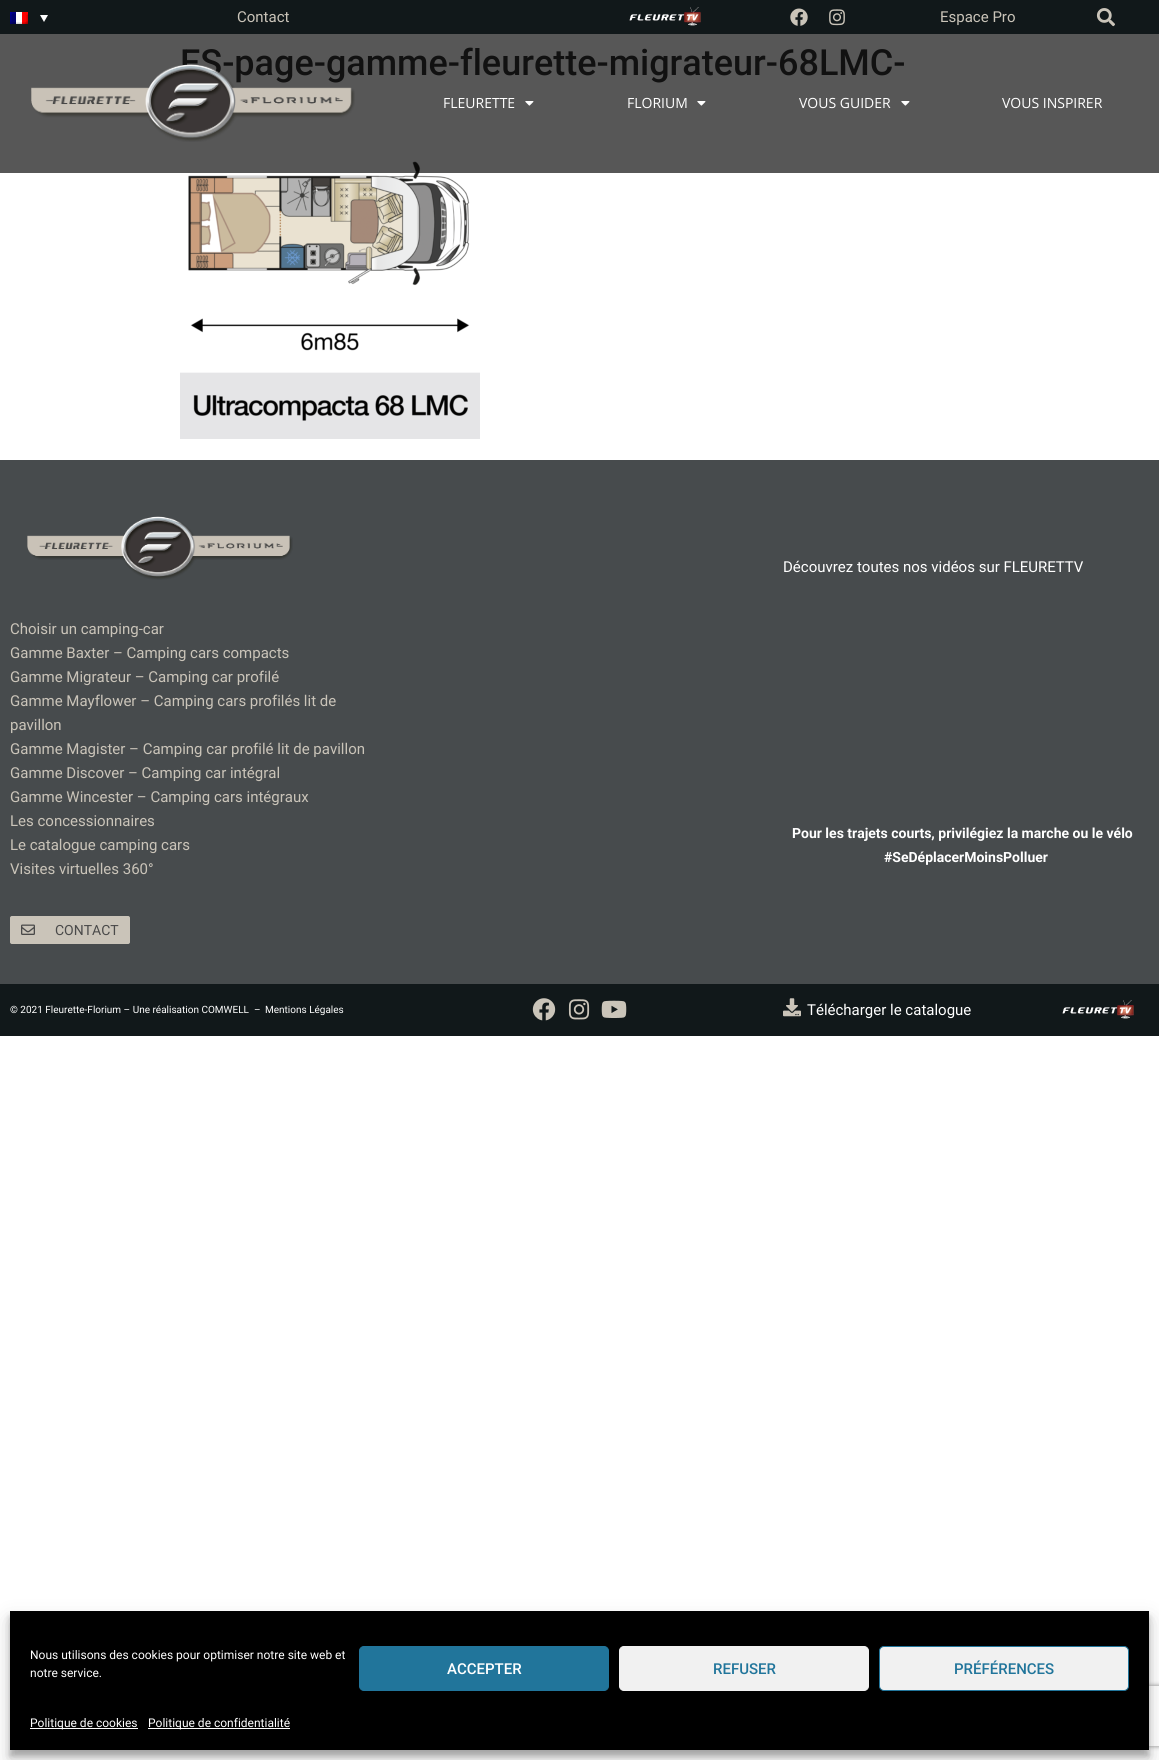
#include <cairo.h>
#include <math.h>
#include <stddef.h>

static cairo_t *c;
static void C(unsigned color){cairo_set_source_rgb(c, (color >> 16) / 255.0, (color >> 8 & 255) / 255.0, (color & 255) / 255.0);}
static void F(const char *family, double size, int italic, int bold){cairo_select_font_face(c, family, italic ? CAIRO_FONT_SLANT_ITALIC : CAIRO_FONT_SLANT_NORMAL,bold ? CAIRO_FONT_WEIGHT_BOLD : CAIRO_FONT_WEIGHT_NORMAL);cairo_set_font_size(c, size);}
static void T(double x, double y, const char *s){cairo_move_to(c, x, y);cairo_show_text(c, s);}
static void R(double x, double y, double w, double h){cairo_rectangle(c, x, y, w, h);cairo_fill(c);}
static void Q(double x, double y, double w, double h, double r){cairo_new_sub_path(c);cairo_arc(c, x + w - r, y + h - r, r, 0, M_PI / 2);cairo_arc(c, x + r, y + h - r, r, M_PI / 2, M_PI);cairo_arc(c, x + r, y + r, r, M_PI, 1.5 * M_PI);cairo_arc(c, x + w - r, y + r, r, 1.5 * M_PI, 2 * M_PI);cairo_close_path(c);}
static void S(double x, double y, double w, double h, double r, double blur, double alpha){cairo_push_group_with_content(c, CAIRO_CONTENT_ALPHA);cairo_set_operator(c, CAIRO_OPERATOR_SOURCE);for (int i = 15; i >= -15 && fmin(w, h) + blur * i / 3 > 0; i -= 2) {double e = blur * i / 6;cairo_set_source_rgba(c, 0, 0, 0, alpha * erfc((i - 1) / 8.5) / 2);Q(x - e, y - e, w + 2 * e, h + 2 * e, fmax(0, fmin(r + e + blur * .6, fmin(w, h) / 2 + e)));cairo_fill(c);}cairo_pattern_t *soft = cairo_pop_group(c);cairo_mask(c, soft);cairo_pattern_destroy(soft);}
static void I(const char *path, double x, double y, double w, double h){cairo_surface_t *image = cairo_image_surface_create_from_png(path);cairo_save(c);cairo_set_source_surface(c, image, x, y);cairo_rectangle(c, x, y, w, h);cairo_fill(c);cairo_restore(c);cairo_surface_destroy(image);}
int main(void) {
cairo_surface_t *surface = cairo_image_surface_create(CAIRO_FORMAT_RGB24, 1159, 1760);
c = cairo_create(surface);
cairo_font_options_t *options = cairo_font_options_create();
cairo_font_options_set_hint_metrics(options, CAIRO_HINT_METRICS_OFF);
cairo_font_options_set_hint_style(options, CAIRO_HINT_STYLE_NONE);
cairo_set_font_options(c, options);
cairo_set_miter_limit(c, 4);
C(0xffffff);
cairo_paint(c);
C(0x11181a);
R(0,0,1159,34);
I("1.png",10,12,18,12);
C(0xffffff);
cairo_new_path(c);
cairo_move_to(c,40,15);
cairo_line_to(c,48,15);
cairo_line_to(c,44,22);
cairo_close_path(c);
cairo_fill(c);
F("Roboto",15,0,0);
C(0xcac4b9);
T(237,22,"Contact");
I("2.png",629,7,72,19);
I("3.png",790,8,18,18);
I("4.png",829,9,16,17);
T(940,22,"Espace Pro");
I("5.png",1096,8,19,19);
F("Roboto Medium",36,0,0);
C(0x333333);
T(180,75,"ES-page-gamme-fleurette-migrateur-68LMC-");
I("8.png",180,161,300,278);
cairo_set_source_rgba(c,0,0,0,0.66);
R(0,34,1159,139);
I("6.png",31,64,324,78);
F("Open Sans",14,0,0);
C(0xffffff);
T(443,108,"FLEURETTE");
I("7.png",525,101,9,5);
T(627,108,"FLORIUM");
I("7.png",697,101,9,5);
T(799,108,"VOUS GUIDER");
I("7.png",901,101,9,5);
T(1002,108,"VOUS INSPIRER");
C(0x474b4d);
R(0,460,1159,524);
I("9.png",27,516,266,64);
F("Roboto",15,0,0);
C(0xcac4b9);
T(10,634,"Choisir un camping-car");
T(10,658,"Gamme Baxter – Camping cars compacts");
T(10,682,"Gamme Migrateur – Camping car profilé");
T(10,706,"Gamme Mayflower – Camping cars profilés lit de");
T(10,730,"pavillon");
T(10,754,"Gamme Magister – Camping car profilé lit de pavillon");
T(10,778,"Gamme Discover – Camping car intégral");
T(10,802,"Gamme Wincester – Camping cars intégraux");
T(10,826,"Les concessionnaires");
T(10,850,"Le catalogue camping cars");
T(10,874,"Visites virtuelles 360°");
Q(10.5,916.5,119,27,1.5);
cairo_fill_preserve(c);
cairo_set_line_width(c,1);
cairo_stroke(c);
I("10.png",21,924,14,11);
F("Roboto",14,0,0);
C(0x4a4a4a);
T(55,935,"CONTACT");
F("Roboto",15,0,0);
C(0xffffff);
T(783,572,"Découvrez toutes nos vidéos sur FLEURETTV");
F("Roboto",14,0,1);
T(792,838,"Pour les trajets courts, privilégiez la marche ou le vélo");
T(884,862,"#SeDéplacerMoinsPolluer");
C(0x11181a);
R(0,984,1159,52);
F("Roboto",10,0,0);
C(0xffffff);
T(10,1013,"© 2021 Fleurette-Florium – Une réalisation COMWELL");
T(254,1013,"–");
T(265,1013,"Mentions Légales");
I("11.png",532,998,24,23);
I("12.png",568,999,22,21);
I("13.png",601,1000,26,18);
I("14.png",783,998,18,19);
F("Roboto",15,0,0);
T(807,1015,"Télécharger le catalogue");
I("2.png",1062,1000,72,19);
C(0x000000);
S(10,1617,1139,139,0,3,.23);
S(10,1621,1139,139,0,10,.19);
cairo_save(c);
cairo_set_fill_rule(c,CAIRO_FILL_RULE_EVEN_ODD);
cairo_new_path(c);
cairo_move_to(c,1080,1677);
cairo_line_to(c,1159,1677);
cairo_line_to(c,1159,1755);
cairo_line_to(c,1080,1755);
cairo_close_path(c);
cairo_move_to(c,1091,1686);
cairo_line_to(c,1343,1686);
cairo_curve_to(c,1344,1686,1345,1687,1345,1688);
cairo_line_to(c,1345,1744);
cairo_curve_to(c,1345,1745,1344,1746,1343,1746);
cairo_line_to(c,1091,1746);
cairo_curve_to(c,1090,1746,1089,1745,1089,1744);
cairo_line_to(c,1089,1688);
cairo_curve_to(c,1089,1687,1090,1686,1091,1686);
cairo_close_path(c);
cairo_clip(c);
C(0x808080);
S(1089,1686,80,60,2,2.5,1);
cairo_restore(c);
C(0x000000);
R(10,1611,1139,139);
F("Roboto",12,0,0);
C(0xffffff);
T(30,1659,"Nous utilisons des cookies pour optimiser notre site web et");
T(30,1677,"notre service.");
C(0x21759b);
Q(359.5,1646.5,249,44,4.5);
cairo_fill_preserve(c);
cairo_stroke(c);
F("Roboto Medium",15,0,0);
C(0xffffff);
T(447,1674,"ACCEPTER");
C(0xf1f1f1);
Q(619.5,1646.5,249,44,4.5);
cairo_fill_preserve(c);
cairo_stroke(c);
C(0x21759b);
T(713,1674,"REFUSER");
C(0xf1f1f1);
Q(879.5,1646.5,249,44,4.5);
cairo_fill_preserve(c);
C(0x21759b);
cairo_stroke(c);
T(954,1674,"PRÉFÉRENCES");
C(0xffffff);
R(30,1728,108,1);
F("Roboto",12,0,0);
T(30,1727,"Politique de cookies");
R(148,1728,142,1);
T(148,1727,"Politique de confidentialité");
cairo_surface_write_to_png(surface, "o.png");
cairo_font_options_destroy(options);
cairo_destroy(c);
cairo_surface_destroy(surface);
return 0;
}
